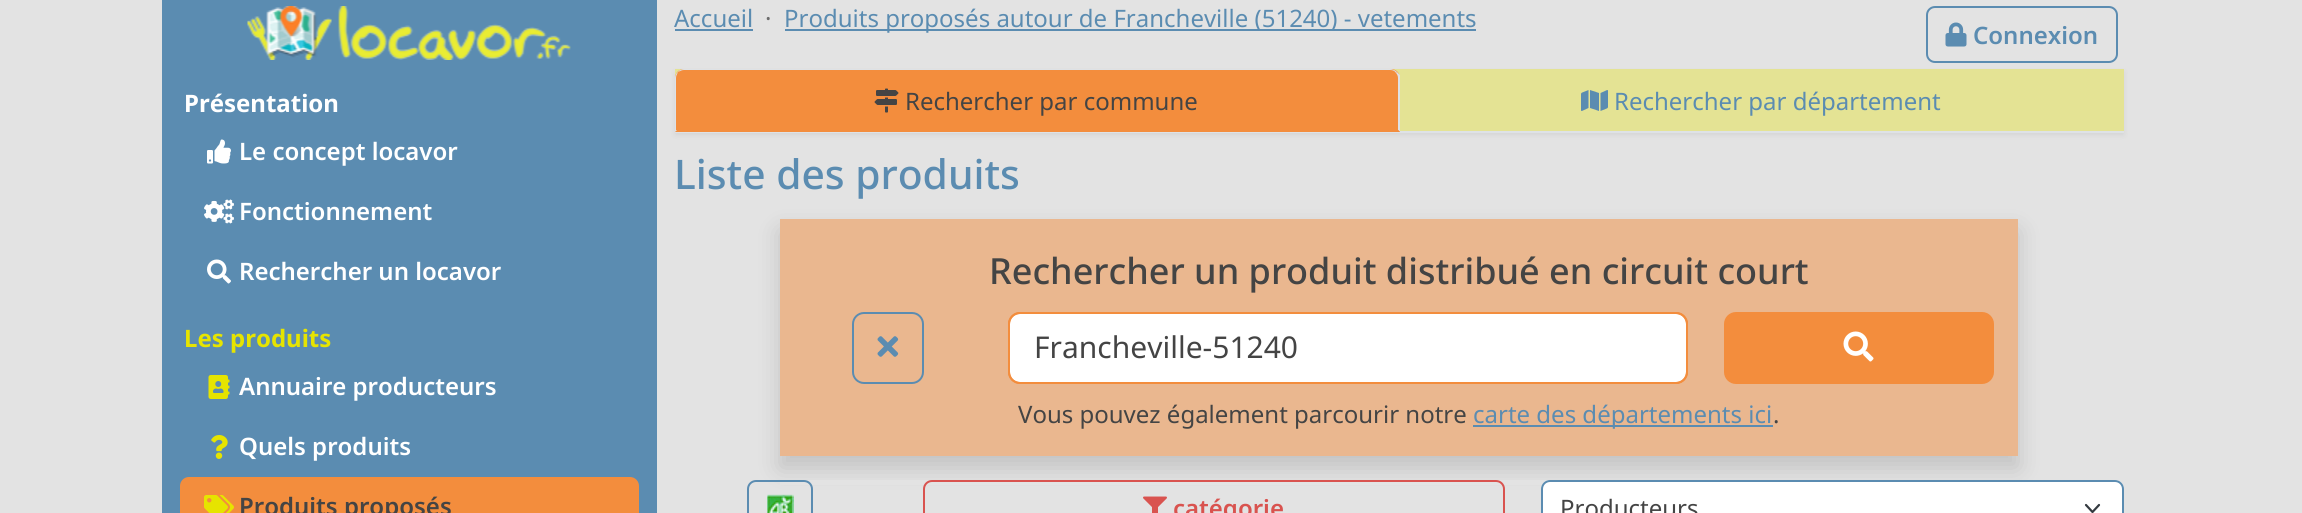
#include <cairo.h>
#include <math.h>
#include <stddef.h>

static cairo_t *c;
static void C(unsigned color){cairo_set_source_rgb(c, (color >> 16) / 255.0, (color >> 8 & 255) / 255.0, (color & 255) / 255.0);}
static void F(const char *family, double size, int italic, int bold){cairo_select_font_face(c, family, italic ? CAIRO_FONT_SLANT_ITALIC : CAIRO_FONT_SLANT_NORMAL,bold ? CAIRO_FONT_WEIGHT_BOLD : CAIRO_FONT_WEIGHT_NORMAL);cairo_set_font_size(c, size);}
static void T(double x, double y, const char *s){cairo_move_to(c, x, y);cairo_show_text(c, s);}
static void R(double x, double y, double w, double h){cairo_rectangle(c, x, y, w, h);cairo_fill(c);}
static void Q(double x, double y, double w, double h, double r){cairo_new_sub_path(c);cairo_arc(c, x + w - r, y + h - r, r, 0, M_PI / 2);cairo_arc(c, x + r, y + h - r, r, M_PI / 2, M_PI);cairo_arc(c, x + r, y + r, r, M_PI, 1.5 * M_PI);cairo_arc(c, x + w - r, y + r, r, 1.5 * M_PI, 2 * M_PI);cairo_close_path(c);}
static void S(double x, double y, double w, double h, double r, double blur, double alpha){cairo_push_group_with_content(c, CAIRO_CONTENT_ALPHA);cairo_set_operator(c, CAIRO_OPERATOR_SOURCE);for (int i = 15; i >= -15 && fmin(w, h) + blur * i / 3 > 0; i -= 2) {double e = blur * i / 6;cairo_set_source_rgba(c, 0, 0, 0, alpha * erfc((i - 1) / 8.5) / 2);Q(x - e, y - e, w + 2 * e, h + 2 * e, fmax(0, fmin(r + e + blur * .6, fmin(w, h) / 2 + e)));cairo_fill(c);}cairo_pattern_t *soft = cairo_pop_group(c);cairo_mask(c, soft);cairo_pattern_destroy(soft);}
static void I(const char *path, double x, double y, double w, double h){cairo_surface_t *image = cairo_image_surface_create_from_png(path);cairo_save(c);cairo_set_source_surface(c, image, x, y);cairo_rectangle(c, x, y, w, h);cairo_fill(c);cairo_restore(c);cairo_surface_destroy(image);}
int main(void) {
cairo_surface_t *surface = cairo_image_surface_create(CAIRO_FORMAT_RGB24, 2302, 513);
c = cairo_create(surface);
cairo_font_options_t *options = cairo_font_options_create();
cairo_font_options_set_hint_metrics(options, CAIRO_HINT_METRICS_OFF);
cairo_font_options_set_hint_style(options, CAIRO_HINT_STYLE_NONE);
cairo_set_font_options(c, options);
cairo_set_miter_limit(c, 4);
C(0xe3e3e3);
cairo_paint(c);
C(0x5b8cb1);
R(162,0,495,513);
I("1.png",247,6,85,54);
I("2.png",338,6,233,54);
F("Noto Sans",24,0,1);
C(0xffffff);
T(184,112,"Présentation");
I("3.png",207,139,24,25);
F("Noto Sans SemiBold",24,0,0);
T(239,160,"Le concept locavor");
I("4.png",204,199,30,25);
T(239,220,"Fonctionnement");
I("5.png",207,259,24,25);
T(239,280,"Rechercher un locavor");
F("Noto Sans",24,0,1);
C(0xe6e400);
T(184,347,"Les produits");
I("6.png",208,375,22,24);
F("Noto Sans SemiBold",24,0,0);
C(0xffffff);
T(239,395,"Annuaire producteurs");
I("7.png",211,435,17,24);
T(239,455,"Quels produits");
C(0xf38d3d);
Q(180,477,459,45,9);
cairo_fill(c);
I("8.png",204,495,30,18);
C(0x444444);
T(239,515,"Produits proposés");
F("Noto Sans",24,0,0);
C(0x5b8cb1);
T(674,27,"Accueil");
R(675,29,78,2);
C(0x6c6c6c);
T(765,27,"·");
C(0x5b8cb1);
R(785,29,691,2);
T(784,27,"Produits proposés autour de Francheville (51240) - vetements");
Q(1927,7,190,55,8);
cairo_stroke(c);
I("9.png",1945,22,22,25);
F("Noto Sans SemiBold",24,0,0);
T(1973,44,"Connexion");
C(0x000000);
S(675,72,1449,63,0,3,.07);
C(0xe4e394);
R(675,69,1449,62);
C(0xdee2e6);
R(675,131,1449,2);
C(0xf38d3d);
cairo_new_path(c);
cairo_move_to(c,684,69);
cairo_line_to(c,1391,69);
cairo_curve_to(c,1396,69,1400,73,1400,78);
cairo_line_to(c,1400,132);
cairo_line_to(c,675,132);
cairo_line_to(c,675,78);
cairo_curve_to(c,675,73,679,69,684,69);
cairo_close_path(c);
cairo_fill(c);
C(0xdee2e6);
cairo_new_path(c);
cairo_move_to(c,684,69);
cairo_curve_to(c,682,69,679,70,678,72);
cairo_curve_to(c,680,71,682,70,684,70);
cairo_line_to(c,1390,70);
cairo_curve_to(c,1393,70,1395,71,1396,73);
cairo_line_to(c,1397,72);
cairo_curve_to(c,1395,70,1392,69,1390,69);
cairo_close_path(c);
cairo_fill(c);
cairo_new_path(c);
cairo_move_to(c,1400,75);
cairo_line_to(c,1400,132);
cairo_line_to(c,1398,130);
cairo_line_to(c,1398,78);
cairo_curve_to(c,1398,76,1397,74,1396,73);
cairo_line_to(c,1397,72);
cairo_close_path(c);
cairo_fill(c);
C(0xf38d3d);
cairo_new_path(c);
cairo_move_to(c,1400,132);
cairo_line_to(c,1398,130);
cairo_line_to(c,677,130);
cairo_line_to(c,675,132);
cairo_close_path(c);
cairo_fill(c);
C(0xdee2e6);
cairo_new_path(c);
cairo_move_to(c,675,132);
cairo_line_to(c,677,130);
cairo_line_to(c,676,130);
cairo_line_to(c,676,78);
cairo_curve_to(c,676,76,677,74,678,72);
cairo_curve_to(c,676,73,675,76,675,78);
cairo_close_path(c);
cairo_fill(c);
I("10.png",874,88,25,25);
F("Noto Sans",24,0,0);
C(0x444444);
T(905,110,"Rechercher par commune");
I("11.png",1581,90,27,21);
C(0x5b8cb1);
T(1614,110,"Rechercher par département");
F("Noto Sans Medium",40.75,0,0);
T(674,189,"Liste des produits");
cairo_save(c);
cairo_set_fill_rule(c,CAIRO_FILL_RULE_EVEN_ODD);
cairo_new_path(c);
cairo_move_to(c,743,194);
cairo_line_to(c,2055,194);
cairo_line_to(c,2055,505);
cairo_line_to(c,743,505);
cairo_close_path(c);
cairo_move_to(c,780,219);
cairo_line_to(c,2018,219);
cairo_line_to(c,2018,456);
cairo_line_to(c,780,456);
cairo_close_path(c);
cairo_clip(c);
C(0x000000);
S(780,231,1238,237,0,12,.15);
cairo_restore(c);
cairo_set_source_rgba(c,0.953,0.553,0.239,0.5);
R(780,219,1238,237);
F("Noto Sans Medium",36,0,0);
C(0x444444);
T(989,284,"Rechercher un produit distribué en circuit court");
Q(853,313,70,70,11);
C(0x5b8cb1);
cairo_stroke(c);
I("12.png",877,336,22,21);
C(0xffffff);
Q(1009,313,678,70,11);
cairo_fill_preserve(c);
C(0xf38d3d);
cairo_stroke(c);
Q(1009,313,678,70,11);
cairo_stroke(c);
F("Noto Sans",30,0,0);
C(0x444444);
T(1034,358,"Francheville-51240");
C(0xf38d3d);
Q(1725,313,268,70,11);
cairo_fill_preserve(c);
cairo_stroke(c);
I("13.png",1843,331,31,31);
F("Noto Sans",24,0,0);
C(0x444444);
T(1018,423,"Vous pouvez également parcourir notre");
C(0x5b8cb1);
R(1473,425,300,2);
T(1473,423,"carte des départements ici");
C(0x444444);
T(1773,423,".");
C(0xe3e3e3);
R(780,480,1238,5);
Q(748,481,64,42,8);
C(0x5b8cb1);
cairo_stroke(c);
I("14.png",767,494,27,19);
Q(924,481,580,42,8);
C(0xd9534f);
cairo_stroke(c);
I("15.png",1143,496,24,17);
F("Noto Sans SemiBold",24,0,0);
T(1173,517,"catégorie");
C(0xffffff);
Q(1541,480,583,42,9);
cairo_fill(c);
cairo_new_path(c);
cairo_move_to(c,2086,505);
cairo_line_to(c,2092.5,512);
cairo_line_to(c,2099,505);
C(0x343a40);
cairo_set_line_width(c,2.2);
cairo_set_line_cap(c,CAIRO_LINE_CAP_ROUND);
cairo_set_line_join(c,CAIRO_LINE_JOIN_ROUND);
cairo_stroke(c);
Q(1542,481,581,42,8);
C(0x5b8cb1);
cairo_set_line_width(c,2);
cairo_set_line_cap(c,CAIRO_LINE_CAP_BUTT);
cairo_set_line_join(c,CAIRO_LINE_JOIN_MITER);
cairo_stroke(c);
F("Noto Sans",24,0,0);
C(0x444444);
T(1560,517,"Producteurs");
cairo_surface_write_to_png(surface, "o.png");
cairo_font_options_destroy(options);
cairo_destroy(c);
cairo_surface_destroy(surface);
return 0;
}
